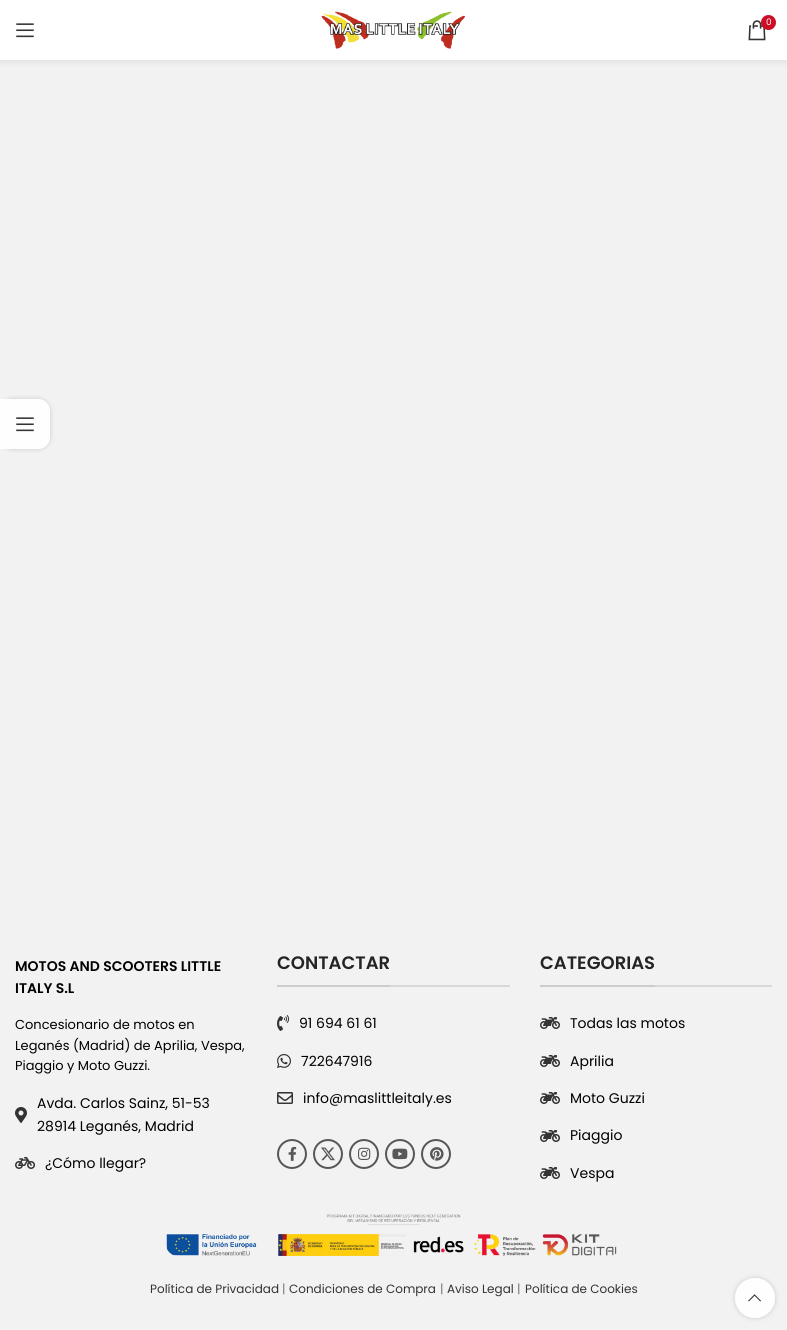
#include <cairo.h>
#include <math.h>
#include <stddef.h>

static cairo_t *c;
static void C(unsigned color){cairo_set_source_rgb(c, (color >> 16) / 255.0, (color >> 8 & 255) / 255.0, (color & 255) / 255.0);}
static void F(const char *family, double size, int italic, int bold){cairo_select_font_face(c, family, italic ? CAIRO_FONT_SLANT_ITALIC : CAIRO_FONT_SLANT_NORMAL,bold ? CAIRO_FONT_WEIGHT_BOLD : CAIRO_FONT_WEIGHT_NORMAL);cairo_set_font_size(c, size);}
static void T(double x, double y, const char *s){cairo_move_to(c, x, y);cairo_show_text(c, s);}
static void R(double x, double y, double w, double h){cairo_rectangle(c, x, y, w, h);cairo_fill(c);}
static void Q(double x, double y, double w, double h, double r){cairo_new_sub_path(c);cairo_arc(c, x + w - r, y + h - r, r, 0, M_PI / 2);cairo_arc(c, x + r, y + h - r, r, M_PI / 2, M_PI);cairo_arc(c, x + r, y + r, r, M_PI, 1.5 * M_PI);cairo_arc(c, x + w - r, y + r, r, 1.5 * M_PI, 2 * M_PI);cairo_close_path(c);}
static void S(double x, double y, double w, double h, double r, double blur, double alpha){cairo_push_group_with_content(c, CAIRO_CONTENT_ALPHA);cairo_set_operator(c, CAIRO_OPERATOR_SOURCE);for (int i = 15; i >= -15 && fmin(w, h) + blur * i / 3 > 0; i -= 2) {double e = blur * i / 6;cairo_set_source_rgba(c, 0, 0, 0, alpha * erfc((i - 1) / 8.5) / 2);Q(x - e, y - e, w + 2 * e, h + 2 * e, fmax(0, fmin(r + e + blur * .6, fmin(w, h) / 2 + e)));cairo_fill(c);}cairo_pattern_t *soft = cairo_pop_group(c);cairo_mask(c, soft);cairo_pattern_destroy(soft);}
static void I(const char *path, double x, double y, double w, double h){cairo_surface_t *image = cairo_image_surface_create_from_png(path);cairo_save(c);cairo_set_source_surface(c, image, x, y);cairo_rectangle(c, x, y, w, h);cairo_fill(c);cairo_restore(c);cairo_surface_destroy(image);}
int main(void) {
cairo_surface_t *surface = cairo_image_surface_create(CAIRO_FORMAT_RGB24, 787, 1330);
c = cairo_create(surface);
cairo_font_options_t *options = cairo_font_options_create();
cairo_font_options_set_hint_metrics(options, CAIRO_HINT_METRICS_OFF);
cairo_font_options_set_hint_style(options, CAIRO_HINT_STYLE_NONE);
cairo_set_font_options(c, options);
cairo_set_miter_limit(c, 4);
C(0xf2f2f2);
cairo_paint(c);
C(0x000000);
S(0,1,787,60,0,4,.1);
C(0xffffff);
R(0,0,787,60);
I("1.png",321,11,144,38);
I("2.png",748,20,18,21);
C(0xcb0d25);
cairo_arc(c,768.5,22.5,7.5,0,2 * M_PI);
cairo_fill(c);
F("Poppins",9,0,0);
C(0xffffff);
T(766,25,"0");
I("3.png",16,23,18,15);
F("Poppins SemiBold",14,0,0);
C(0x000000);
T(15,971,"MOTOS AND SCOOTERS LITTLE");
T(15,993,"ITALY S.L");
F("Poppins",13,0,0);
T(15,1029,"Concesionario de motos en");
T(15,1050,"Leganés (Madrid) de Aprilia, Vespa,");
T(15,1070,"Piaggio y Moto Guzzi.");
I("4.png",15,1107,12,16);
F("Poppins",14,0,0);
T(37,1108,"Avda. Carlos Sainz, 51-53");
T(37,1131,"28914 Leganés, Madrid");
I("5.png",15,1157,20,12);
T(45,1168,"¿Cómo llegar?");
C(0xd8d8d8);
R(390,985,120,2);
C(0xcccccc);
R(277,985,113,2);
F("Poppins SemiBold",18,0,0);
C(0x242424);
T(277,969,"CONTACTAR");
I("6.png",277,1015,12,16);
F("Poppins",14,0,0);
C(0x000000);
T(299,1028,"91 694 61 61");
I("7.png",277,1054,14,14);
T(301,1066,"722647916");
I("8.png",277,1092,16,12);
T(303,1103,"info@maslittleitaly.es");
cairo_new_path(c);
cairo_arc(c,292,1154,14,0,2 * M_PI);
C(0x575757);
cairo_stroke(c);
I("9.png",288,1146,9,15);
cairo_arc(c,328,1154,14,0,2 * M_PI);
cairo_stroke(c);
I("10.png",321,1147,14,14);
cairo_arc(c,364,1154,14,0,2 * M_PI);
cairo_stroke(c);
I("11.png",358,1147,13,13);
cairo_arc(c,400,1154,14,0,2 * M_PI);
cairo_stroke(c);
I("12.png",392,1148,16,12);
cairo_arc(c,436,1154,14,0,2 * M_PI);
cairo_stroke(c);
I("13.png",430,1147,14,14);
C(0xd8d8d8);
R(655,985,117,2);
C(0xcccccc);
R(540,985,115,2);
F("Poppins SemiBold",18,0,0);
C(0x242424);
T(540,969,"CATEGORIAS");
I("14.png",540,1017,20,12);
F("Poppins",14,0,0);
C(0x000000);
T(570,1028,"Todas las motos");
I("14.png",540,1055,20,12);
T(570,1066,"Aprilia");
I("14.png",540,1092,20,12);
T(570,1103,"Moto Guzzi");
I("14.png",540,1130,20,12);
T(570,1140,"Piaggio");
I("14.png",540,1167,20,12);
T(570,1178,"Vespa");
I("15.png",166,1214,451,42);
F("Poppins",12,0,0);
C(0x333333);
T(150,1293,"Política de Privacidad");
C(0x767676);
T(282,1293,"|");
C(0x333333);
T(289,1293,"Condiciones de Compra");
C(0x767676);
T(440,1293,"|");
C(0x333333);
T(447,1293,"Aviso Legal");
C(0x767676);
T(517,1293,"|");
C(0x333333);
T(525,1293,"Política de Cookies");
cairo_save(c);
cairo_set_fill_rule(c,CAIRO_FILL_RULE_EVEN_ODD);
cairo_new_path(c);
cairo_move_to(c,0,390);
cairo_line_to(c,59,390);
cairo_line_to(c,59,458);
cairo_line_to(c,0,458);
cairo_close_path(c);
cairo_move_to(c,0,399);
cairo_line_to(c,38,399);
cairo_curve_to(c,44.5,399,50,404.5,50,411);
cairo_line_to(c,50,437);
cairo_curve_to(c,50,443.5,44.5,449,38,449);
cairo_line_to(c,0,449);
cairo_close_path(c);
cairo_clip(c);
C(0x000000);
S(0,399,50,50,12,2.5,.17);
cairo_restore(c);
cairo_set_source_rgba(c,1,1,1,0.9);
cairo_new_path(c);
cairo_move_to(c,0,399);
cairo_line_to(c,38,399);
cairo_curve_to(c,44.5,399,50,404.5,50,411);
cairo_line_to(c,50,437);
cairo_curve_to(c,50,443.5,44.5,449,38,449);
cairo_line_to(c,0,449);
cairo_close_path(c);
cairo_fill(c);
I("16.png",16,417,18,15);
cairo_save(c);
cairo_set_fill_rule(c,CAIRO_FILL_RULE_EVEN_ODD);
cairo_new_path(c);
cairo_move_to(c,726,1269);
cairo_line_to(c,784,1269);
cairo_line_to(c,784,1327);
cairo_line_to(c,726,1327);
cairo_close_path(c);
cairo_move_to(c,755,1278);
cairo_curve_to(c,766,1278,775,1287,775,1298);
cairo_curve_to(c,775,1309,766,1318,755,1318);
cairo_curve_to(c,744,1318,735,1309,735,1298);
cairo_curve_to(c,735,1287,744,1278,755,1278);
cairo_close_path(c);
cairo_clip(c);
C(0x000000);
S(735,1278,40,40,20,2.5,.17);
cairo_restore(c);
cairo_arc(c,755,1298,20,0,2 * M_PI);
cairo_fill(c);
I("17.png",748,1294,13,8);
cairo_surface_write_to_png(surface, "o.png");
cairo_font_options_destroy(options);
cairo_destroy(c);
cairo_surface_destroy(surface);
return 0;
}
